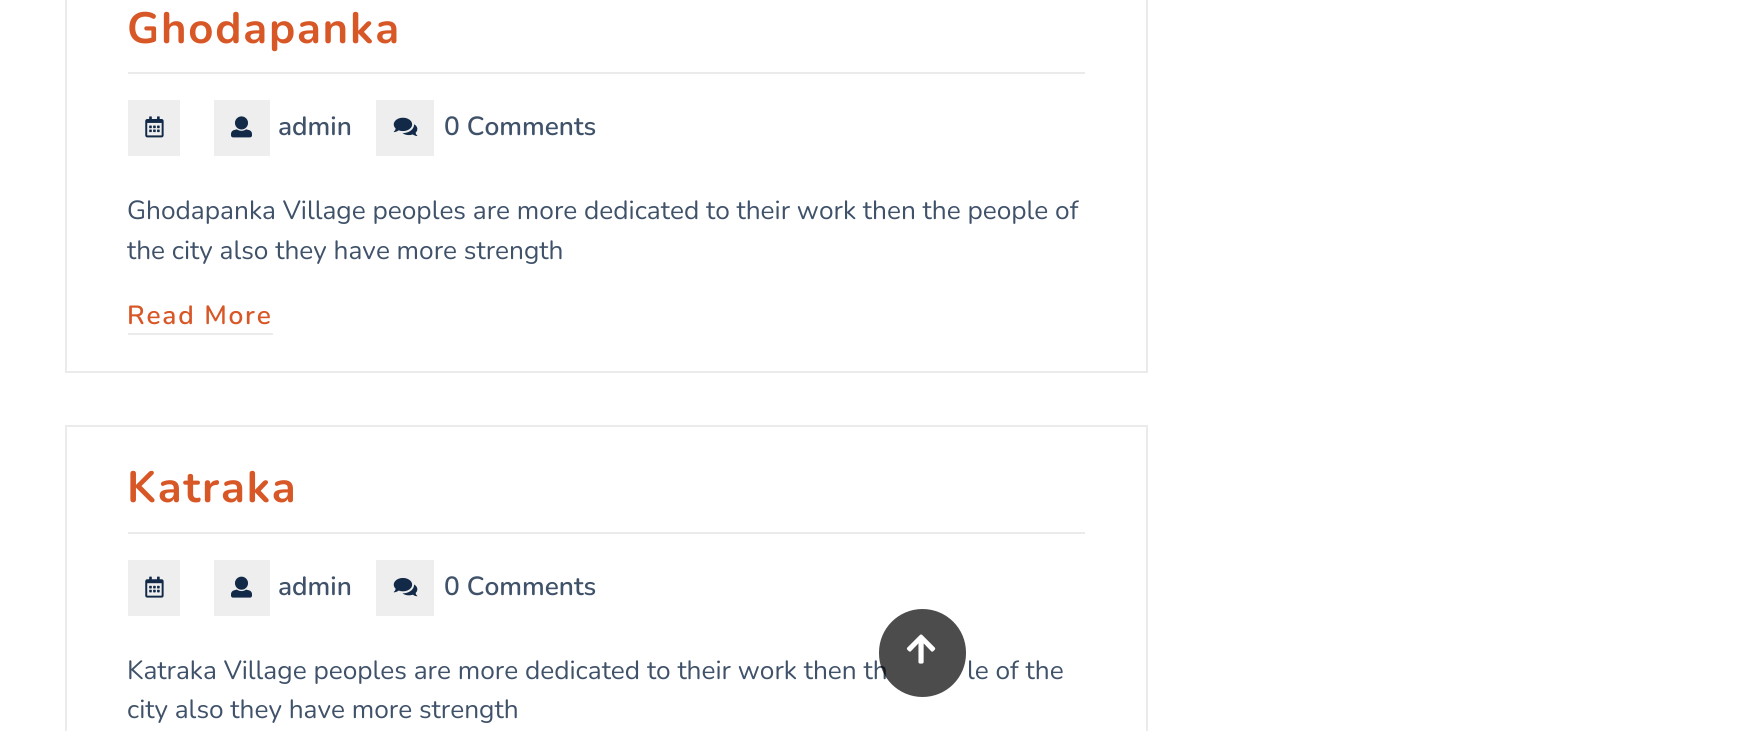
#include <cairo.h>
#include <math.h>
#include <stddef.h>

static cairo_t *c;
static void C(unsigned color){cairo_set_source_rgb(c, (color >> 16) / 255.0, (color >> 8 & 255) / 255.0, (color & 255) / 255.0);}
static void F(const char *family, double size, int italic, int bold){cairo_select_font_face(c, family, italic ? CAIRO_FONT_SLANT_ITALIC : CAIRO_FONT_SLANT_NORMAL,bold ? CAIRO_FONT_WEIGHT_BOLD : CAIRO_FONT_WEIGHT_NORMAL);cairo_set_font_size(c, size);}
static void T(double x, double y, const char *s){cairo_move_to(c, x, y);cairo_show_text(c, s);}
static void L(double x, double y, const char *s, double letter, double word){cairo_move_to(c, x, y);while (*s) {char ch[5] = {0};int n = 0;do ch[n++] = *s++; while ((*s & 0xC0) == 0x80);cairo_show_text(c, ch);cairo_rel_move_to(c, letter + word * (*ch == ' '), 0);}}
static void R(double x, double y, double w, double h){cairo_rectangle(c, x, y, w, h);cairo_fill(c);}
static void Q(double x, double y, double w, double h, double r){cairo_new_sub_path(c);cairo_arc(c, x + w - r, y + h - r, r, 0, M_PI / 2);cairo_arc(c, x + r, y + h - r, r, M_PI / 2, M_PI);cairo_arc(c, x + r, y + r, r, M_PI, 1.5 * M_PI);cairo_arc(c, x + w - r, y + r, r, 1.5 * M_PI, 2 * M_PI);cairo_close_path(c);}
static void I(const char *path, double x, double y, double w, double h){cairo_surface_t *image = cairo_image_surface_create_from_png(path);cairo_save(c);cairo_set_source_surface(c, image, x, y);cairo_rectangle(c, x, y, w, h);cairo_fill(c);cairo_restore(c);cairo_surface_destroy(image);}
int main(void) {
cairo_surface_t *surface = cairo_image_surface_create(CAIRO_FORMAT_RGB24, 1754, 731);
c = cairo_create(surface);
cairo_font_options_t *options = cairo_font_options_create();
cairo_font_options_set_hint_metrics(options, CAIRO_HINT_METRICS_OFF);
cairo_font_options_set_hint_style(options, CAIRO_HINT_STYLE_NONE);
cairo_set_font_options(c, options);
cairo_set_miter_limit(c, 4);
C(0xffffff);
cairo_paint(c);
cairo_rectangle(c,66,-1,1081,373);
C(0xebebeb);
cairo_stroke(c);
R(128,72,957,2);
F("Nunito",43.75,0,1);
C(0xd85726);
L(127,43,"Ghodapanka",1.75,0);
C(0xeeeeee);
R(128,100,52,56);
I("1.png",145,116,19,22);
R(214,100,56,56);
I("2.png",231,116,21,22);
F("Nunito SemiBold",26.25,0,0);
C(0x40526a);
T(278,135,"admin");
C(0xeeeeee);
R(376,100,58,56);
I("3.png",393,117,25,19);
C(0x40526a);
T(444,135,"0 Comments");
F("Nunito",26.25,0,0);
T(127,219,"Ghodapanka Village peoples are more dedicated to their work then the people of");
T(127,259,"the city also they have more strength");
F("Nunito SemiBold",26.25,0,0);
C(0xd85726);
L(127,324,"Read More",1.75,0);
C(0xebebeb);
R(128,333,145,2);
cairo_rectangle(c,66,426,1081,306);
cairo_stroke(c);
R(128,532,957,2);
F("Nunito",43.75,0,1);
C(0xd85726);
L(127,502,"Katraka",1.75,0);
C(0xeeeeee);
R(128,560,52,56);
I("4.png",145,576,19,22);
R(214,560,56,56);
I("5.png",231,576,21,22);
F("Nunito SemiBold",26.25,0,0);
C(0x40526a);
T(278,595,"admin");
C(0xeeeeee);
R(376,560,58,56);
I("6.png",393,577,25,20);
C(0x40526a);
T(444,595,"0 Comments");
F("Nunito",26.25,0,0);
T(127,679,"Katraka Village peoples are more dedicated to their work then th");
T(967,679,"le of the");
T(127,718,"city also they have more strength");
cairo_set_source_rgba(c,0,0,0,0.7);
Q(879,609,87,88,43.5);
cairo_fill(c);
I("7.png",906,634,30,30);
cairo_surface_write_to_png(surface, "o.png");
cairo_font_options_destroy(options);
cairo_destroy(c);
cairo_surface_destroy(surface);
return 0;
}
